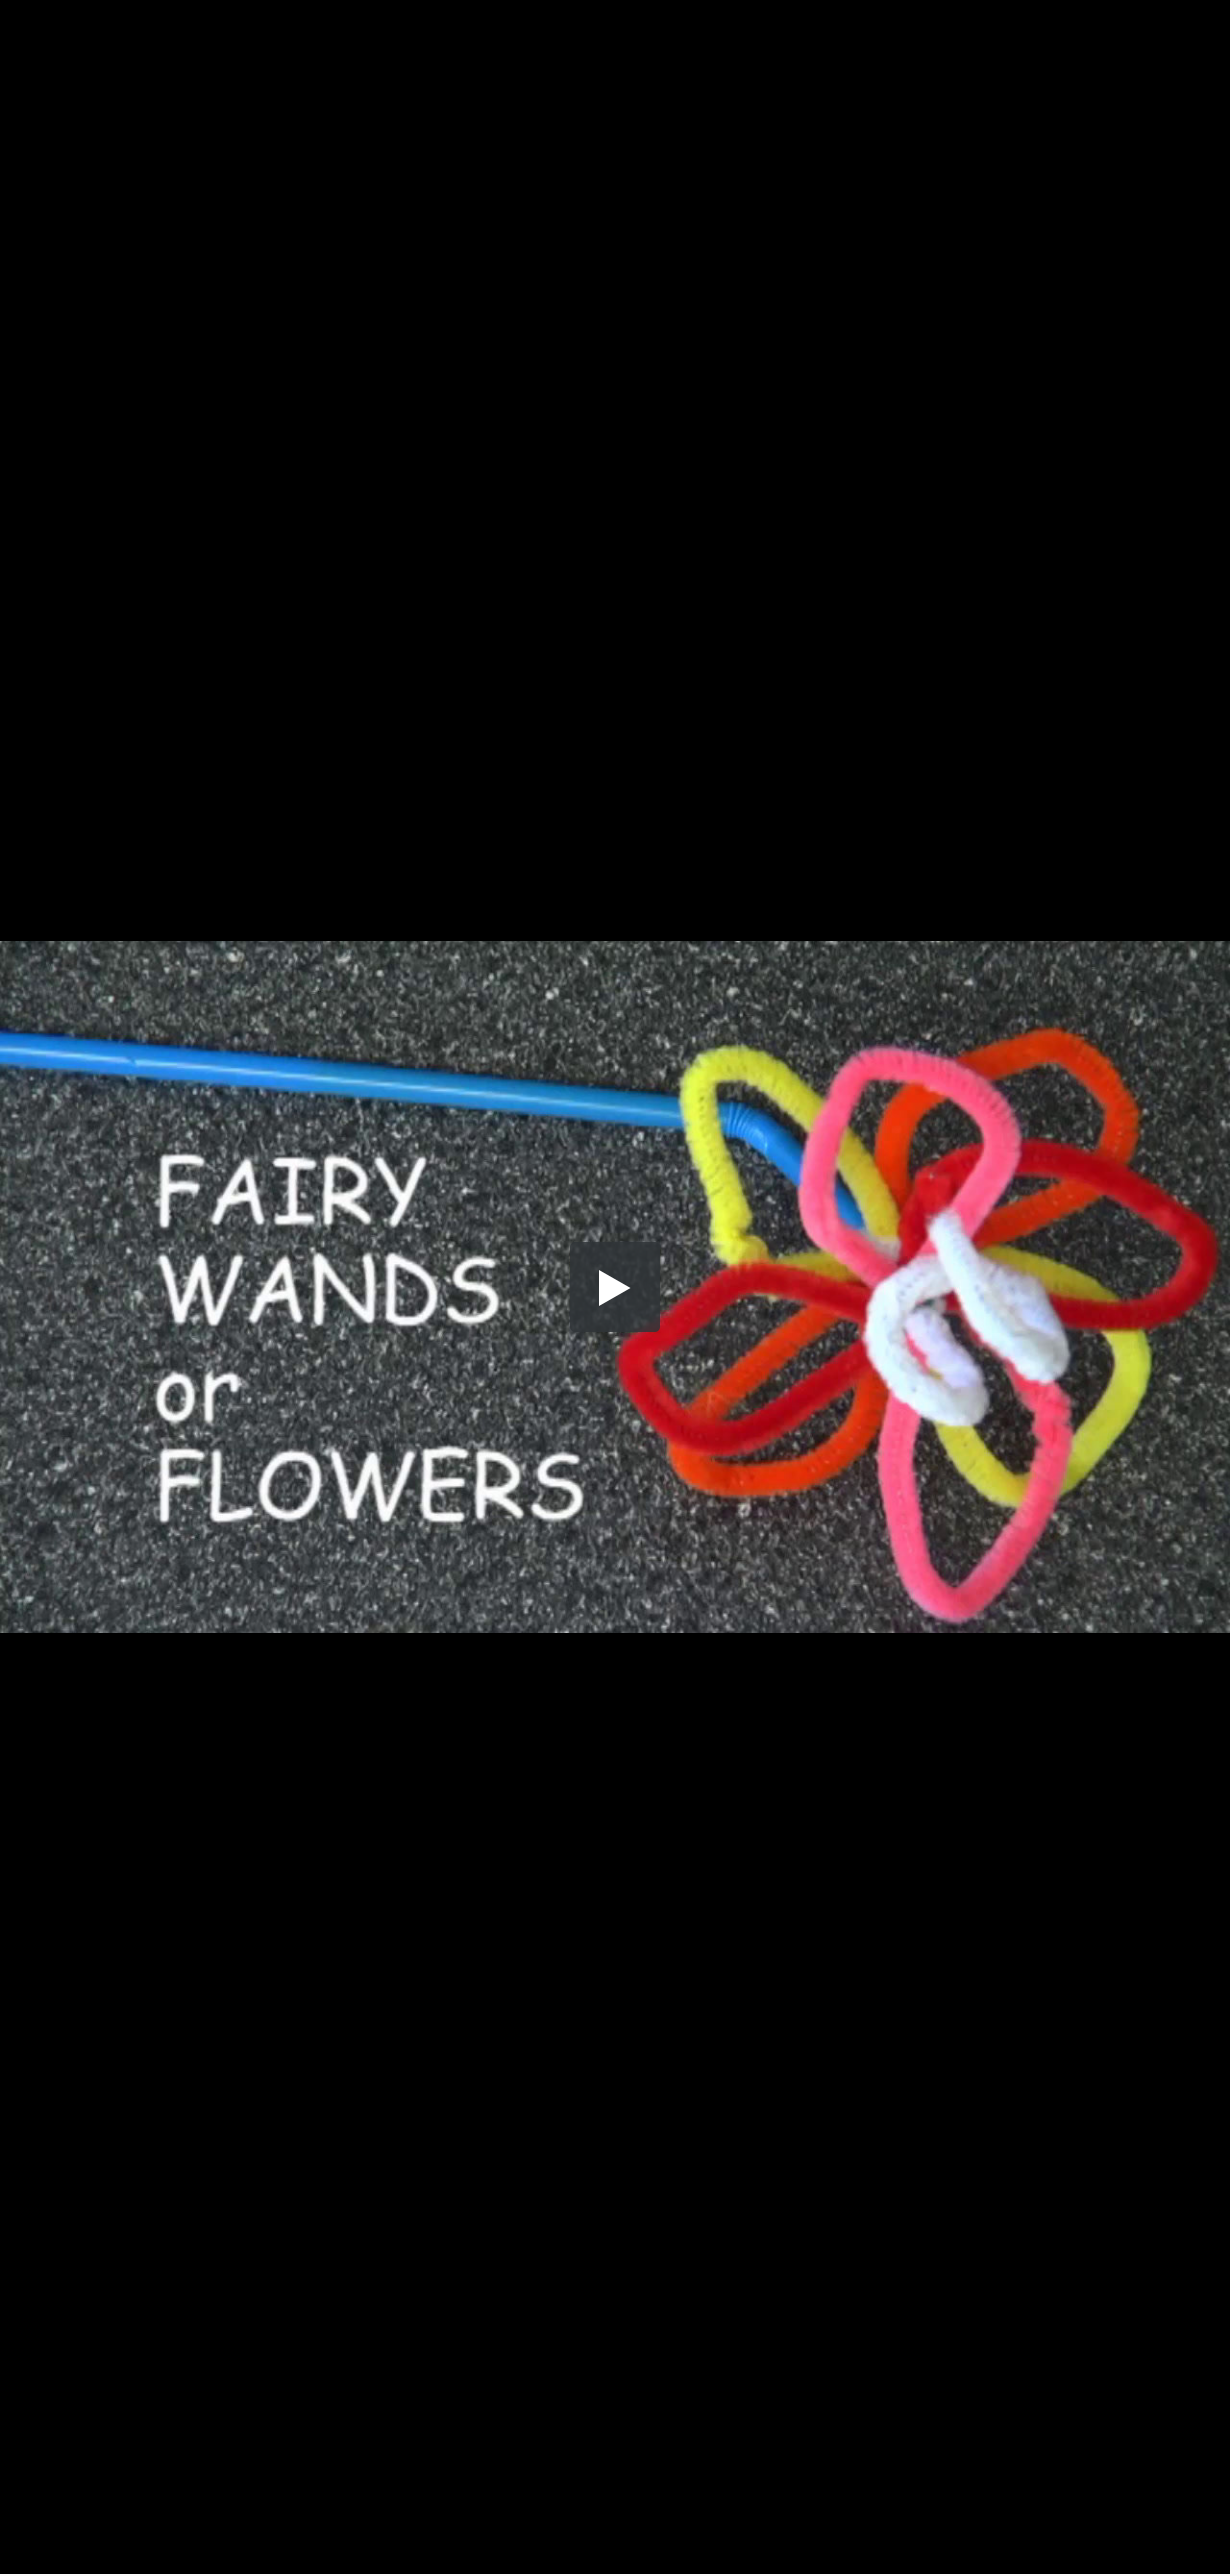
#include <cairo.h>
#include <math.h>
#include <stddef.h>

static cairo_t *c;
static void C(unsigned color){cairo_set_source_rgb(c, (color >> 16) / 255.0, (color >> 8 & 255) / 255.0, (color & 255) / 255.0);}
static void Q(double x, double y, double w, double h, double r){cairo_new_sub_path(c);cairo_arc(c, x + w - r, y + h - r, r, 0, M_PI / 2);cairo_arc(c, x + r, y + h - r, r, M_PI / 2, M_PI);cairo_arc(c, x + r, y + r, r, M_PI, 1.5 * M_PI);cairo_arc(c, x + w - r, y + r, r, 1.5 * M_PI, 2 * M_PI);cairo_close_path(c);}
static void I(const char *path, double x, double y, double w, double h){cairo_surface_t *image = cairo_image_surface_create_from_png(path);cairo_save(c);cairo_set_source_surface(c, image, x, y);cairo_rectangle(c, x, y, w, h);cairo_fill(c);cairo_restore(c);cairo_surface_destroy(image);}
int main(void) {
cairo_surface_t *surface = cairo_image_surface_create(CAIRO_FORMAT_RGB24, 1230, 2574);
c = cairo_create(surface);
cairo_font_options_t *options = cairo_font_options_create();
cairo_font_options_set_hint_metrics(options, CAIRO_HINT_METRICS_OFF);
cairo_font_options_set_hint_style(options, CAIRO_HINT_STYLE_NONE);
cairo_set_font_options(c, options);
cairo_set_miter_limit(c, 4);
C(0x000000);
cairo_paint(c);
I("1.png",0,941,1230,692);
cairo_set_source_rgba(c,0.184,0.204,0.216,0.85);
Q(570,1242,90,90,5);
cairo_fill(c);
C(0xffffff);
cairo_new_path(c);
cairo_move_to(c,599,1270);
cairo_line_to(c,599,1306);
cairo_line_to(c,630.5,1288);
cairo_close_path(c);
cairo_fill(c);
cairo_surface_write_to_png(surface, "o.png");
cairo_font_options_destroy(options);
cairo_destroy(c);
cairo_surface_destroy(surface);
return 0;
}
